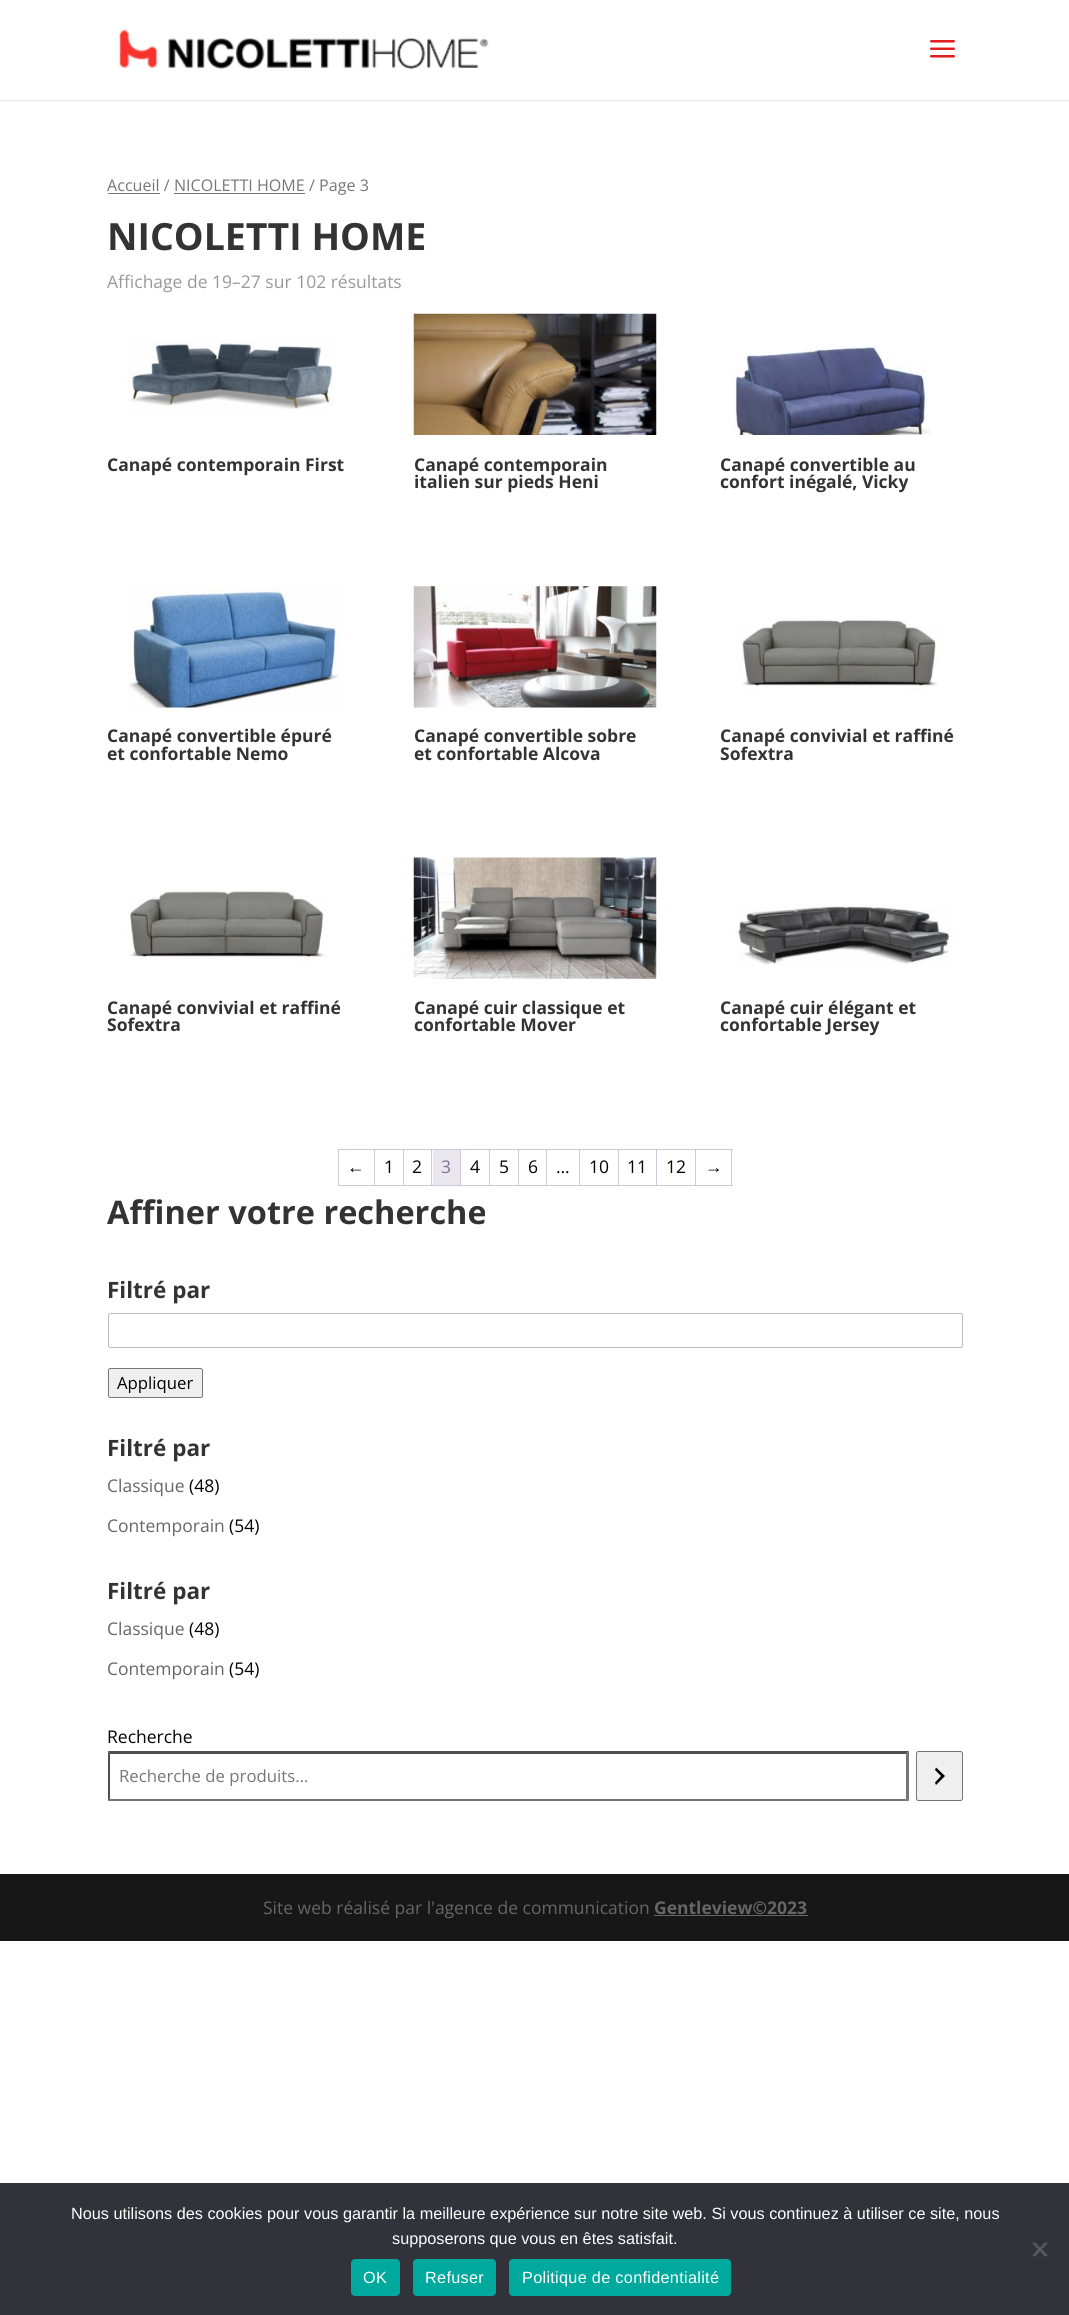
#include <cairo.h>
#include <math.h>
#include <stddef.h>

static cairo_t *c;
static void C(unsigned color){cairo_set_source_rgb(c, (color >> 16) / 255.0, (color >> 8 & 255) / 255.0, (color & 255) / 255.0);}
static void F(const char *family, double size, int italic, int bold){cairo_select_font_face(c, family, italic ? CAIRO_FONT_SLANT_ITALIC : CAIRO_FONT_SLANT_NORMAL,bold ? CAIRO_FONT_WEIGHT_BOLD : CAIRO_FONT_WEIGHT_NORMAL);cairo_set_font_size(c, size);}
static void T(double x, double y, const char *s){cairo_move_to(c, x, y);cairo_show_text(c, s);}
static void L(double x, double y, const char *s, double letter, double word){cairo_move_to(c, x, y);while (*s) {char ch[5] = {0};int n = 0;do ch[n++] = *s++; while ((*s & 0xC0) == 0x80);cairo_show_text(c, ch);cairo_rel_move_to(c, letter + word * (*ch == ' '), 0);}}
static void R(double x, double y, double w, double h){cairo_rectangle(c, x, y, w, h);cairo_fill(c);}
static void Q(double x, double y, double w, double h, double r){cairo_new_sub_path(c);cairo_arc(c, x + w - r, y + h - r, r, 0, M_PI / 2);cairo_arc(c, x + r, y + h - r, r, M_PI / 2, M_PI);cairo_arc(c, x + r, y + r, r, M_PI, 1.5 * M_PI);cairo_arc(c, x + w - r, y + r, r, 1.5 * M_PI, 2 * M_PI);cairo_close_path(c);}
static void I(const char *path, double x, double y, double w, double h){cairo_surface_t *image = cairo_image_surface_create_from_png(path);cairo_save(c);cairo_set_source_surface(c, image, x, y);cairo_rectangle(c, x, y, w, h);cairo_fill(c);cairo_restore(c);cairo_surface_destroy(image);}
int main(void) {
cairo_surface_t *surface = cairo_image_surface_create(CAIRO_FORMAT_RGB24, 1069, 2315);
c = cairo_create(surface);
cairo_font_options_t *options = cairo_font_options_create();
cairo_font_options_set_hint_metrics(options, CAIRO_HINT_METRICS_OFF);
cairo_font_options_set_hint_style(options, CAIRO_HINT_STYLE_NONE);
cairo_set_font_options(c, options);
cairo_set_miter_limit(c, 4);
C(0xffffff);
cairo_paint(c);
C(0xe6e6e6);
R(0,100,1069,1);
I("1.png",119,29,370,41);
I("2.png",930,40,25,18);
C(0x767676);
R(108,193,52,1);
F("Open Sans",16.1,0,0);
T(107,191,"Accueil / NICOLETTI HOME / Page 3");
R(174,193,131,1);
F("Open Sans",37.5,0,1);
C(0x333333);
T(107,250,"NICOLETTI HOME");
F("Open Sans",17.5,0,0);
C(0x999999);
T(107,288,"Affichage de 19–27 sur 102 résultats");
I("3.png",127,340,207,70);
F("Open Sans",17.5,0,1);
C(0x333333);
T(107,471,"Canapé contemporain First");
I("4.png",413,313,244,122);
T(414,471,"Canapé contemporain");
T(414,488,"italien sur pieds Heni");
I("5.png",733,345,198,90);
T(720,471,"Canapé convertible au");
T(720,488,"confort inégalé, Vicky");
I("6.png",128,586,213,122);
T(107,742,"Canapé convertible épuré");
T(107,760,"et confortable Nemo");
I("7.png",413,586,244,122);
T(414,742,"Canapé convertible sobre");
T(414,760,"et confortable Alcova");
I("8.png",739,619,200,71);
T(720,742,"Canapé convivial et raffiné");
T(720,760,"Sofextra");
I("9.png",127,890,200,71);
T(107,1014,"Canapé convivial et raffiné");
T(107,1031,"Sofextra");
I("10.png",413,857,244,122);
T(414,1014,"Canapé cuir classique et");
T(414,1031,"confortable Mover");
I("11.png",735,904,218,62);
T(720,1014,"Canapé cuir élégant et");
T(720,1031,"confortable Jersey");
C(0xcfc8d8);
R(338,1149,395,1);
R(338,1185,395,1);
R(338,1149,1,37);
R(374,1150,1,35);
F("Liberation Sans",17.5,0,0);
C(0x000000);
T(347,1173,"←");
C(0xcfc8d8);
R(403,1150,1,35);
F("Open Sans",17.5,0,0);
C(0x000000);
T(384,1173,"1");
C(0xcfc8d8);
R(431,1150,1,35);
C(0x000000);
T(412,1173,"2");
C(0xcfc8d8);
R(460,1150,1,35);
C(0xe9e6ed);
R(433,1150,27,35);
C(0x816f98);
T(441,1173,"3");
C(0xcfc8d8);
R(489,1150,1,35);
C(0x000000);
T(470,1173,"4");
C(0xcfc8d8);
R(518,1150,1,35);
C(0x000000);
T(499,1173,"5");
C(0xcfc8d8);
R(546,1150,1,35);
C(0x000000);
T(528,1173,"6");
C(0xcfc8d8);
R(579,1150,1,35);
C(0x000000);
T(556,1173,"…");
C(0xcfc8d8);
R(618,1150,1,35);
C(0x000000);
T(589,1173,"10");
C(0xcfc8d8);
R(656,1150,1,35);
C(0x000000);
T(627,1173,"11");
C(0xcfc8d8);
R(695,1150,1,35);
C(0x000000);
T(666,1173,"12");
C(0xcfc8d8);
R(731,1150,1,35);
F("Liberation Sans",17.5,0,0);
C(0x000000);
T(705,1173,"→");
F("Open Sans",32.5,0,1);
C(0x333333);
T(107,1224,"Affiner votre recherche");
F("Open Sans",22.5,0,1);
T(107,1298,"Filtré par");
Q(108.5,1313.5,854,34,2);
C(0xbbbbbb);
cairo_set_line_width(c,1);
cairo_stroke(c);
C(0xefefef);
Q(108.5,1368.5,94,29,2);
cairo_fill_preserve(c);
C(0x767676);
cairo_stroke(c);
F("Open Sans",16.75,0,0);
C(0x000000);
T(117,1389,"Appliquer");
F("Open Sans",22.5,0,1);
C(0x333333);
T(107,1456,"Filtré par");
F("Open Sans",17.5,0,0);
C(0x666666);
T(107,1492,"Classique");
C(0x000000);
T(189,1492,"(48)");
C(0x666666);
T(107,1532,"Contemporain");
C(0x000000);
T(229,1532,"(54)");
F("Open Sans",22.5,0,1);
C(0x333333);
T(107,1599,"Filtré par");
F("Open Sans",17.5,0,0);
C(0x666666);
T(107,1635,"Classique");
C(0x000000);
T(189,1635,"(48)");
C(0x666666);
T(107,1675,"Contemporain");
C(0x000000);
T(229,1675,"(54)");
T(107,1743,"Recherche");
C(0x4f4f4f);
cairo_new_path(c);
cairo_move_to(c,108,1751);
cairo_line_to(c,909,1751);
cairo_line_to(c,906,1754);
cairo_line_to(c,110,1754);
cairo_close_path(c);
cairo_fill(c);
C(0x767676);
cairo_new_path(c);
cairo_move_to(c,909,1751);
cairo_line_to(c,909,1801);
cairo_line_to(c,906,1799);
cairo_line_to(c,906,1754);
cairo_close_path(c);
cairo_fill(c);
cairo_new_path(c);
cairo_move_to(c,909,1801);
cairo_line_to(c,108,1801);
cairo_line_to(c,110,1799);
cairo_line_to(c,906,1799);
cairo_close_path(c);
cairo_fill(c);
C(0x4f4f4f);
cairo_new_path(c);
cairo_move_to(c,108,1801);
cairo_line_to(c,108,1751);
cairo_line_to(c,110,1754);
cairo_line_to(c,110,1799);
cairo_close_path(c);
cairo_fill(c);
F("Open Sans",16.75,0,0);
C(0x767676);
T(119,1782,"Recherche de produits…");
C(0xefefef);
Q(916.5,1751.5,46,49,2);
cairo_fill_preserve(c);
C(0x767676);
cairo_stroke(c);
C(0x000000);
cairo_new_path(c);
cairo_move_to(c,935,1782.5);
cairo_line_to(c,941,1776);
cairo_line_to(c,935,1770);
cairo_line_to(c,936,1767.5);
cairo_line_to(c,945,1776);
cairo_line_to(c,936,1785);
cairo_close_path(c);
cairo_fill(c);
C(0x171717);
R(0,1874,1069,67);
F("Open Sans",17.5,0,0);
C(0x666666);
T(263,1914,"Site web réalisé par l'agence de communication");
F("Open Sans",17.5,0,1);
T(654,1914,"Gentleview©2023");
R(654,1915,154,1);
C(0x32323a);
R(0,2183,1069,132);
F("Liberation Sans",16.25,0,0);
C(0xffffff);
T(71,2219,"Nous utilisons des cookies pour vous garantir la meilleure expérience sur notre site web. Si vous continuez à utiliser ce site, nous");
T(392,2244,"supposerons que vous en êtes satisfait.");
C(0x59595d);
cairo_new_path(c);
cairo_move_to(c,1045.5,2242);
cairo_line_to(c,1047.5,2243.5);
cairo_line_to(c,1034.5,2257);
cairo_line_to(c,1032.5,2255);
cairo_close_path(c);
cairo_fill(c);
cairo_new_path(c);
cairo_move_to(c,1032.5,2243.5);
cairo_line_to(c,1034.5,2242);
cairo_line_to(c,1047.5,2255);
cairo_line_to(c,1045.5,2257);
cairo_close_path(c);
cairo_fill(c);
C(0x00a99d);
Q(351,2259,49,37,4);
cairo_fill(c);
C(0xffffff);
L(363,2283,"OK",.3,0);
C(0x00a99d);
Q(413,2259,83,37,4);
cairo_fill(c);
C(0xffffff);
L(425,2283,"Refuser",.3,0);
C(0x00a99d);
Q(509,2259,222,37,4);
cairo_fill(c);
C(0xffffff);
L(522,2283,"Politique de confidentialité",.3,0);
cairo_surface_write_to_png(surface, "o.png");
cairo_font_options_destroy(options);
cairo_destroy(c);
cairo_surface_destroy(surface);
return 0;
}
